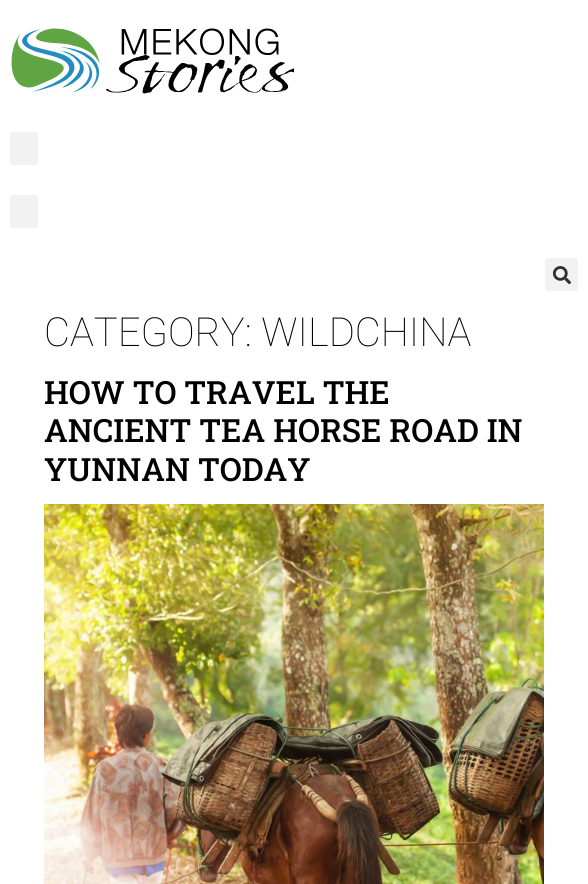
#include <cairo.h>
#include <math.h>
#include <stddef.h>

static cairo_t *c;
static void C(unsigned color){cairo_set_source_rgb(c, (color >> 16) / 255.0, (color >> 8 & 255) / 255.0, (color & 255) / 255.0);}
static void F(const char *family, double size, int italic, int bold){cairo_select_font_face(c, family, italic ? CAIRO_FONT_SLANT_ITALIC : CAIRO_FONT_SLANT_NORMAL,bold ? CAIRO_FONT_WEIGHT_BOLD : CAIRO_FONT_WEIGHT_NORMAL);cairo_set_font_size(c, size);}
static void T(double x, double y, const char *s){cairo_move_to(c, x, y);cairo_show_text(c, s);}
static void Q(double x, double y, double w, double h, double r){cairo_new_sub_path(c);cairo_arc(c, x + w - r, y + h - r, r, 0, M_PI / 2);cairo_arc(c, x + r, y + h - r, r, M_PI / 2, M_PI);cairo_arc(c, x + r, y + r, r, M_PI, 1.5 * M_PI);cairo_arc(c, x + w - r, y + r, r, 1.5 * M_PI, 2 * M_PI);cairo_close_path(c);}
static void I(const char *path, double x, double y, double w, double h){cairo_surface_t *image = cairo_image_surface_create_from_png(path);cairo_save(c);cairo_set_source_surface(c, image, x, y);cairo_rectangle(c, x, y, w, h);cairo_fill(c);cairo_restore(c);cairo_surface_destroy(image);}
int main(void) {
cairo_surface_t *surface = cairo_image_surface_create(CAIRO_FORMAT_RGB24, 588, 884);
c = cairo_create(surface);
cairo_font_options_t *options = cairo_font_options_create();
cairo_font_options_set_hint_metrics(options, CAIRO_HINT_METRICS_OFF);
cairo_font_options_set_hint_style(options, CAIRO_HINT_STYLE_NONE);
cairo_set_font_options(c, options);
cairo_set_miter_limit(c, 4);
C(0xffffff);
cairo_paint(c);
I("1.png",11,28,284,66);
C(0xf2f2f2);
Q(10,132,28,33,3);
cairo_fill(c);
Q(10,195,28,33,3);
cairo_fill(c);
Q(545,258,33,33,3);
cairo_fill(c);
I("2.png",552,266,19,19);
F("Roboto Thin",40,0,0);
C(0x000000);
T(44,346,"CATEGORY: WILDCHINA");
F("Roboto Slab Medium",32,0,0);
T(44,404,"HOW TO TRAVEL THE");
T(44,442,"ANCIENT TEA HORSE ROAD IN");
T(44,481,"YUNNAN TODAY");
I("3.png",44,504,500,380);
cairo_surface_write_to_png(surface, "o.png");
cairo_font_options_destroy(options);
cairo_destroy(c);
cairo_surface_destroy(surface);
return 0;
}
